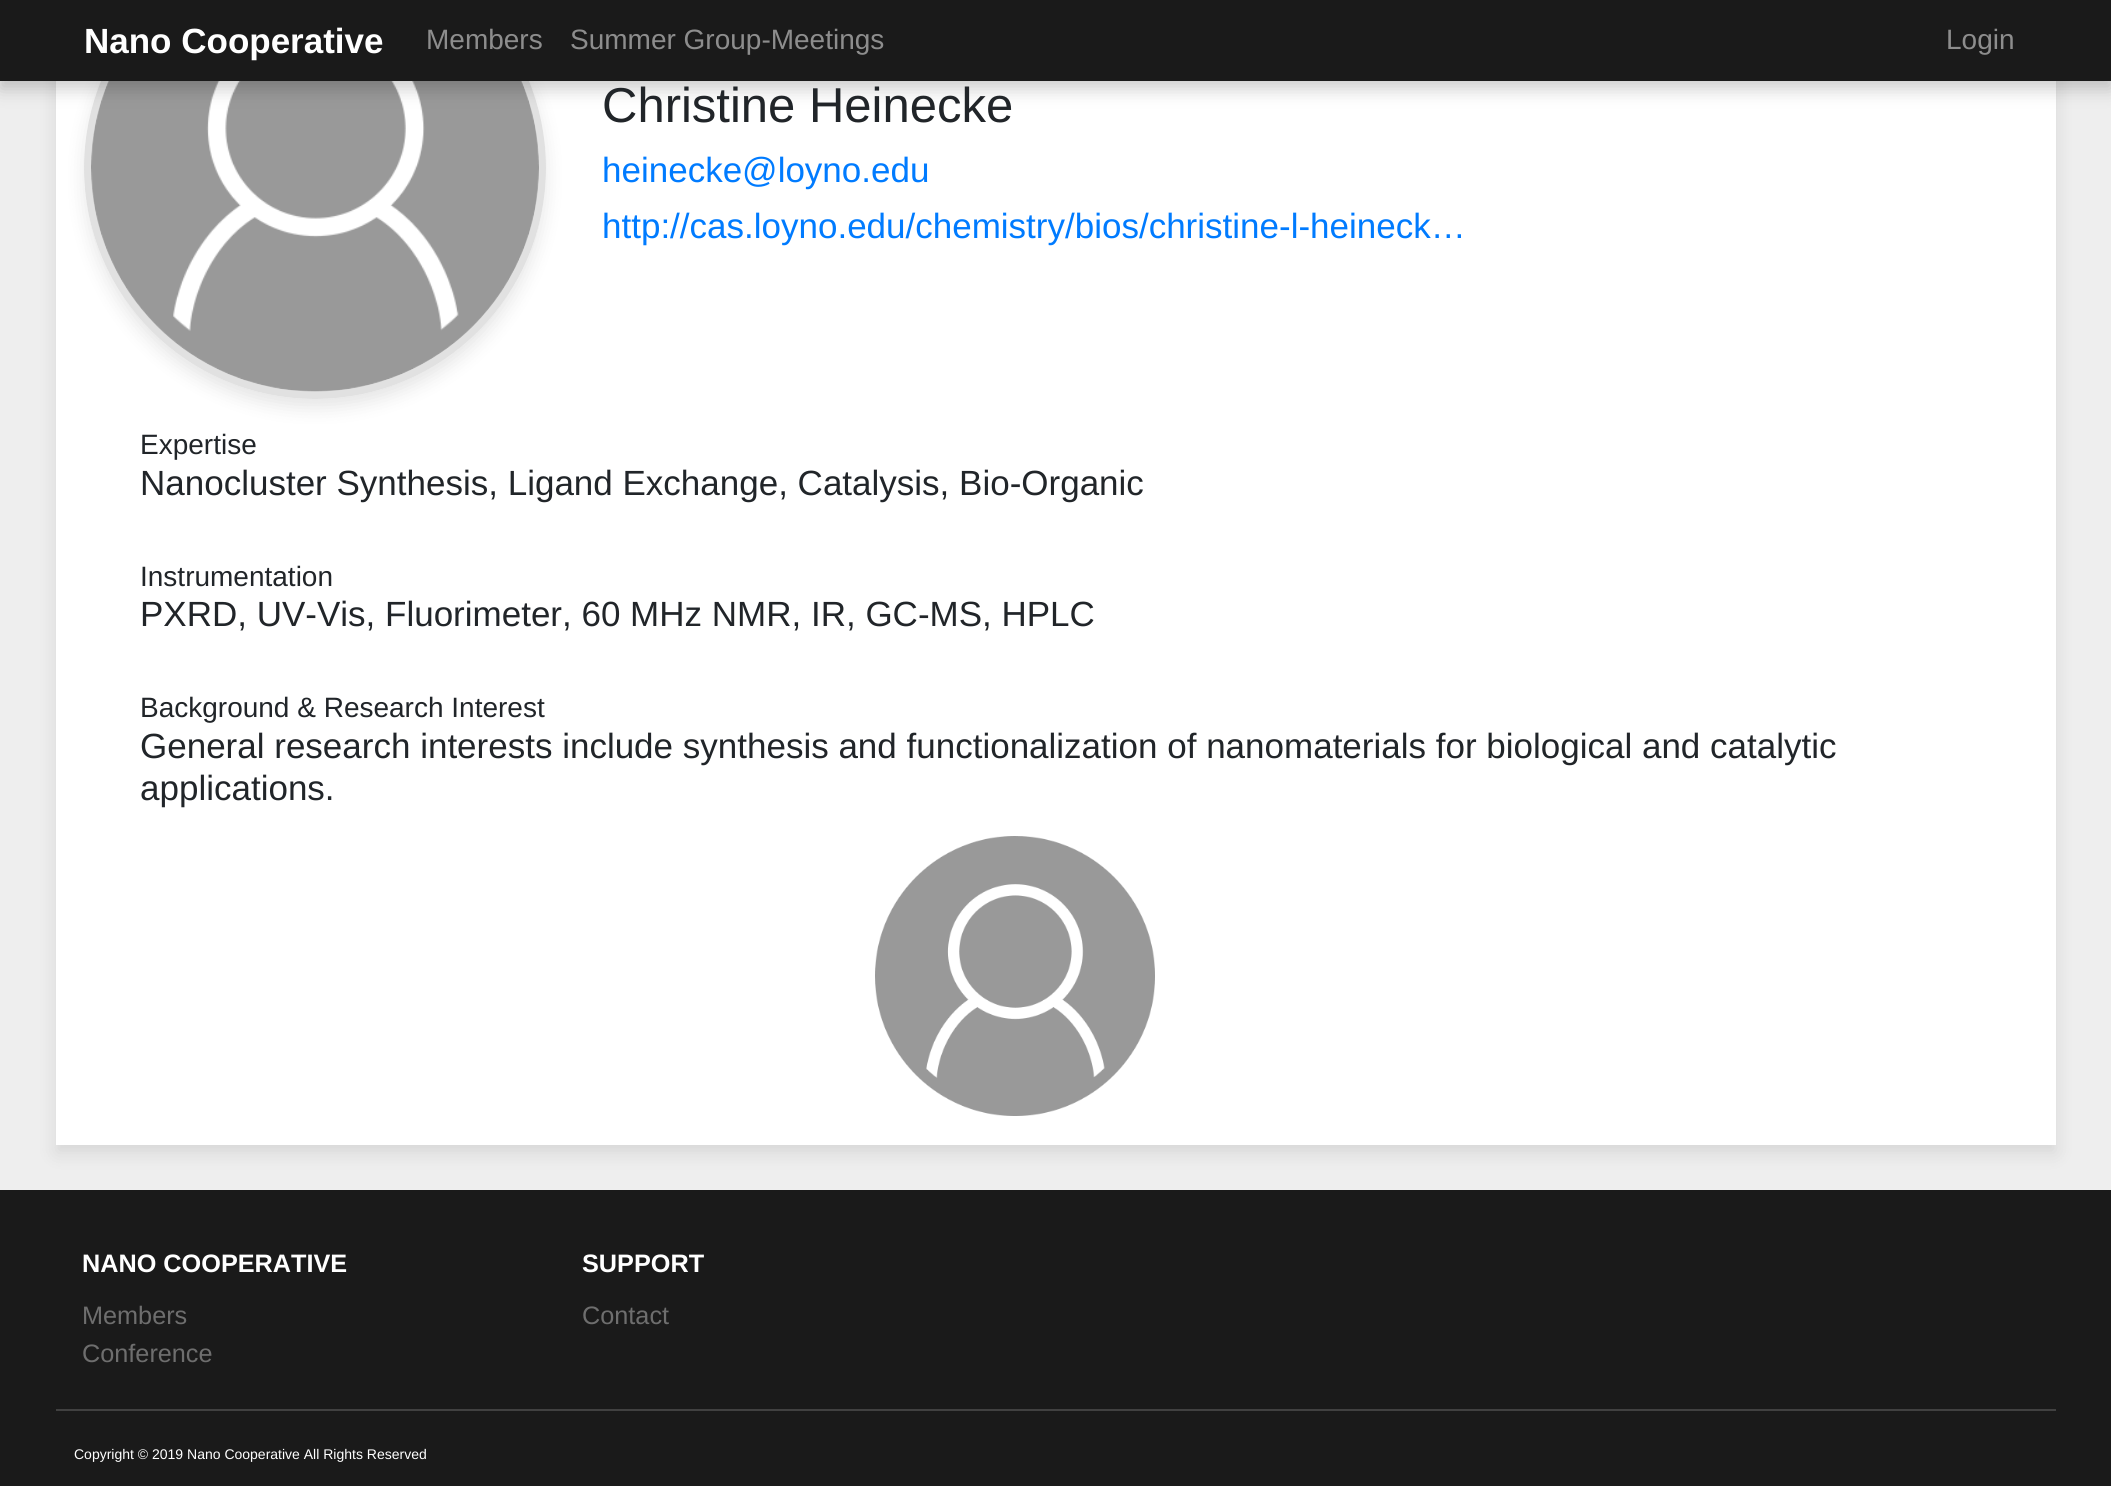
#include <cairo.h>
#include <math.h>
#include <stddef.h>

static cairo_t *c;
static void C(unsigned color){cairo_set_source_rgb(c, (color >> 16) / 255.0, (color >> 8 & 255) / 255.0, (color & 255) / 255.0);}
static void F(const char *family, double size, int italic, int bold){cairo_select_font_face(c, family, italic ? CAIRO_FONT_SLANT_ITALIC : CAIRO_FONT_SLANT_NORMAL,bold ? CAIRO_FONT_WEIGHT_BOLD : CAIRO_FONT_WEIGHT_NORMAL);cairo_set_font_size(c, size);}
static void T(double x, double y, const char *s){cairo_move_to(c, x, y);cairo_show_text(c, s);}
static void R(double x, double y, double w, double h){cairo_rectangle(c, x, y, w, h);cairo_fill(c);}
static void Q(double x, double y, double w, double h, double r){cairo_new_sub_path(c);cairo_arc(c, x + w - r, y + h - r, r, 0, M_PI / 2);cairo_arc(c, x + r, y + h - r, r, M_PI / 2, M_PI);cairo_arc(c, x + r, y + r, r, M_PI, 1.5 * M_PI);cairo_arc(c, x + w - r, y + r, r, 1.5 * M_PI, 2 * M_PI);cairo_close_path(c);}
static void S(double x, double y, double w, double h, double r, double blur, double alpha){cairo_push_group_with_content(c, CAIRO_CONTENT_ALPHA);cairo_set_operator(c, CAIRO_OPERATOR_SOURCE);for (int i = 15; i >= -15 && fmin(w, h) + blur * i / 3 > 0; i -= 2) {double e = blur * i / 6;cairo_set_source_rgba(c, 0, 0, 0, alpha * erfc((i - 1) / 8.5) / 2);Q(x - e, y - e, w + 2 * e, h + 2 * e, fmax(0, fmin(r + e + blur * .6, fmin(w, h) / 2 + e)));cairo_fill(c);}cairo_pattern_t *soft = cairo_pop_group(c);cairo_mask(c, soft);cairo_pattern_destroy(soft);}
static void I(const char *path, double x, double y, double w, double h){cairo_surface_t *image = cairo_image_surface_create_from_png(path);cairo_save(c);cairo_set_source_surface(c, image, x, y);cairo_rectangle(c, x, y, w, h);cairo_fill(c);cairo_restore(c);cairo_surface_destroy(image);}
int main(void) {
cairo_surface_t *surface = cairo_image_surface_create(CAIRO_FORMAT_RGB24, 2111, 1486);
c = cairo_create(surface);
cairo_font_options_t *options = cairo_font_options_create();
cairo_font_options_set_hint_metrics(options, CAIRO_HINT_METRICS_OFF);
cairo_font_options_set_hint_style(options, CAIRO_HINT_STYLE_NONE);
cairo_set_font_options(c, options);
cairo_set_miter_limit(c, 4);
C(0xeeeeee);
cairo_paint(c);
C(0x000000);
S(56,-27,2000,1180,0,9,.1);
C(0xffffff);
R(56,81,2000,1064);
cairo_save(c);
cairo_set_fill_rule(c,CAIRO_FILL_RULE_EVEN_ODD);
cairo_new_path(c);
cairo_move_to(c,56,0);
cairo_line_to(c,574,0);
cairo_line_to(c,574,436);
cairo_line_to(c,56,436);
cairo_close_path(c);
cairo_move_to(c,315,-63);
cairo_curve_to(c,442.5,-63,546,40.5,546,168);
cairo_curve_to(c,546,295.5,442.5,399,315,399);
cairo_curve_to(c,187.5,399,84,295.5,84,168);
cairo_curve_to(c,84,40.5,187.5,-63,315,-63);
cairo_close_path(c);
cairo_clip(c);
C(0x000000);
S(84,-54,462,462,231,9,.1);
cairo_restore(c);
cairo_set_source_rgba(c,0.792,0.792,0.792,0.56);
cairo_arc(c,315,168,231,0,2 * M_PI);
cairo_fill(c);
I("1.png",91,81,448,311);
C(0x000000);
S(0,9,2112,80,0,9,.2);
C(0x1a1a1a);
R(0,0,2111,81);
F("Liberation Sans",35,0,1);
C(0xffffff);
T(84,53,"Nano Cooperative");
F("Liberation Sans",28,0,0);
C(0x8d8d8d);
T(426,49,"Members");
T(570,49,"Summer Group-Meetings");
T(1946,49,"Login");
F("Liberation Sans",49,0,0);
C(0x212529);
T(602,122,"Christine Heinecke");
F("Liberation Sans",35,0,0);
C(0x007bff);
T(602,182,"heinecke@loyno.edu");
T(602,238,"http://cas.loyno.edu/chemistry/bios/christine-l-heineck…");
F("Liberation Sans",28,0,0);
C(0x212529);
T(140,454,"Expertise");
F("Liberation Sans",35,0,0);
T(140,495,"Nanocluster Synthesis, Ligand Exchange, Catalysis, Bio-Organic");
F("Liberation Sans",28,0,0);
T(140,586,"Instrumentation");
F("Liberation Sans",35,0,0);
T(140,626,"PXRD, UV-Vis, Fluorimeter, 60 MHz NMR, IR, GC-MS, HPLC");
F("Liberation Sans",28,0,0);
T(140,717,"Background & Research Interest");
F("Liberation Sans",35,0,0);
T(140,758,"General research interests include synthesis and functionalization of nanomaterials for biological and catalytic");
T(140,800,"applications.");
I("2.png",875,836,280,280);
C(0x1a1a1a);
R(0,1190,2111,296);
F("Liberation Sans",25.25,0,1);
C(0xffffff);
T(82,1272,"NANO COOPERATIVE");
F("Liberation Sans",25.25,0,0);
C(0x6e6e6e);
T(82,1324,"Members");
T(82,1362,"Conference");
F("Liberation Sans",25.25,0,1);
C(0xffffff);
T(582,1272,"SUPPORT");
F("Liberation Sans",25.25,0,0);
C(0x6e6e6e);
T(582,1324,"Contact");
C(0x414141);
R(56,1409,2000,2);
F("Liberation Sans",14,0,0);
C(0xffffff);
T(74,1459,"Copyright © 2019 Nano Cooperative All Rights Reserved");
cairo_surface_write_to_png(surface, "o.png");
cairo_font_options_destroy(options);
cairo_destroy(c);
cairo_surface_destroy(surface);
return 0;
}
